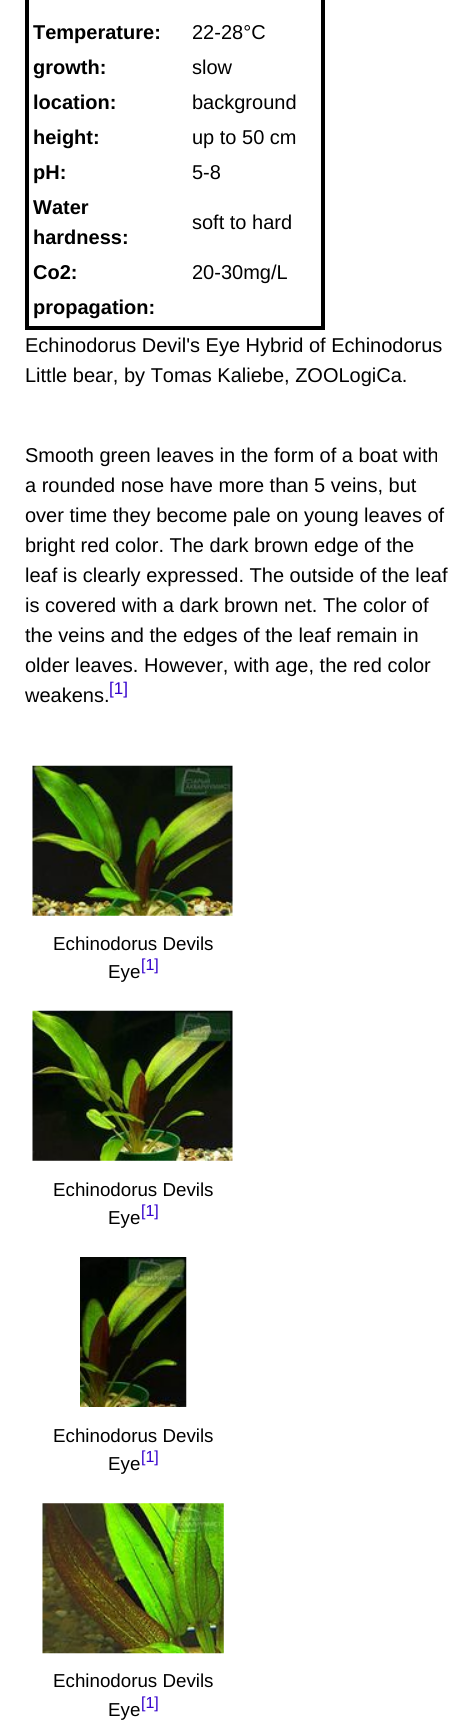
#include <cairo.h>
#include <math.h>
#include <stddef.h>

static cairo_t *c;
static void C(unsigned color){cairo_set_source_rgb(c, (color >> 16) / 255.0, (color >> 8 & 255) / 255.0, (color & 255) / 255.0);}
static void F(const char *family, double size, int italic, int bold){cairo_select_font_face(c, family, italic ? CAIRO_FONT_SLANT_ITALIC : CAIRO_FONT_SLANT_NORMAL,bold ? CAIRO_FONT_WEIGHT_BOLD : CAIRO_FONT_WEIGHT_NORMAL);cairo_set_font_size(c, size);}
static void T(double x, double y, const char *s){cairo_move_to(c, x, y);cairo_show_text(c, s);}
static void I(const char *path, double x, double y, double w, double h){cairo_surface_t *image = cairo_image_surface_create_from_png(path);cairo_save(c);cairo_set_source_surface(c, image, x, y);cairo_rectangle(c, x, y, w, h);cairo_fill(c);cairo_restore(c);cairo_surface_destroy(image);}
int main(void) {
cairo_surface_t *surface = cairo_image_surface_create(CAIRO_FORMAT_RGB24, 475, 1728);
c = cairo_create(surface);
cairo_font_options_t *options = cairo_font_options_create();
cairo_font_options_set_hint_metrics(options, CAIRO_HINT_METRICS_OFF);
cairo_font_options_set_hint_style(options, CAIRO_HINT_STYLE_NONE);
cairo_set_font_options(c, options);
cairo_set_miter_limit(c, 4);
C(0xffffff);
cairo_paint(c);
cairo_rectangle(c,27,-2,296,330);
C(0x000000);
cairo_set_line_width(c,4);
cairo_stroke(c);
F("Liberation Sans",20,0,1);
T(33,39,"Temperature:");
F("Liberation Sans",20,0,0);
T(192,39,"22-28°C");
F("Liberation Sans",20,0,1);
T(33,74,"growth:");
F("Liberation Sans",20,0,0);
T(192,74,"slow");
F("Liberation Sans",20,0,1);
T(33,109,"location:");
F("Liberation Sans",20,0,0);
T(192,109,"background");
F("Liberation Sans",20,0,1);
T(33,144,"height:");
F("Liberation Sans",20,0,0);
T(192,144,"up to 50 cm");
F("Liberation Sans",20,0,1);
T(33,179,"pH:");
F("Liberation Sans",20,0,0);
T(192,179,"5-8");
F("Liberation Sans",20,0,1);
T(33,214,"Water");
T(33,244,"hardness:");
F("Liberation Sans",20,0,0);
T(192,229,"soft to hard");
F("Liberation Sans",20,0,1);
T(33,279,"Co2:");
F("Liberation Sans",20,0,0);
T(192,279,"20-30mg/L");
F("Liberation Sans",20,0,1);
T(33,314,"propagation:");
F("Liberation Sans",20,0,0);
T(25,352,"Echinodorus Devil's Eye Hybrid of Echinodorus");
T(25,382,"Little bear, by Tomas Kaliebe, ZOOLogiCa.");
T(25,462,"Smooth green leaves in the form of a boat with");
T(25,492,"a rounded nose have more than 5 veins, but");
T(25,522,"over time they become pale on young leaves of");
T(25,552,"bright red color. The dark brown edge of the");
T(25,582,"leaf is clearly expressed. The outside of the leaf");
T(25,612,"is covered with a dark brown net. The color of");
T(25,642,"the veins and the edges of the leaf remain in");
T(25,672,"older leaves. However, with age, the red color");
T(25,702,"weakens.");
F("Liberation Sans",17,0,0);
C(0x3300cc);
T(109,694,"[1]");
I("1.png",32,765,201,151);
F("Liberation Sans",18.75,0,0);
C(0x000000);
T(53,950,"Echinodorus Devils");
T(108,978,"Eye");
F("Liberation Sans",16,0,0);
C(0x3300cc);
T(141,970,"[1]");
I("2.png",32,1010,201,151);
F("Liberation Sans",18.75,0,0);
C(0x000000);
T(53,1196,"Echinodorus Devils");
T(108,1224,"Eye");
F("Liberation Sans",16,0,0);
C(0x3300cc);
T(141,1216,"[1]");
I("3.png",80,1257,107,150);
F("Liberation Sans",18.75,0,0);
C(0x000000);
T(53,1442,"Echinodorus Devils");
T(108,1470,"Eye");
F("Liberation Sans",16,0,0);
C(0x3300cc);
T(141,1462,"[1]");
I("4.png",42,1503,182,151);
F("Liberation Sans",18.75,0,0);
C(0x000000);
T(53,1687,"Echinodorus Devils");
T(108,1716,"Eye");
F("Liberation Sans",16,0,0);
C(0x3300cc);
T(141,1708,"[1]");
cairo_surface_write_to_png(surface, "o.png");
cairo_font_options_destroy(options);
cairo_destroy(c);
cairo_surface_destroy(surface);
return 0;
}
